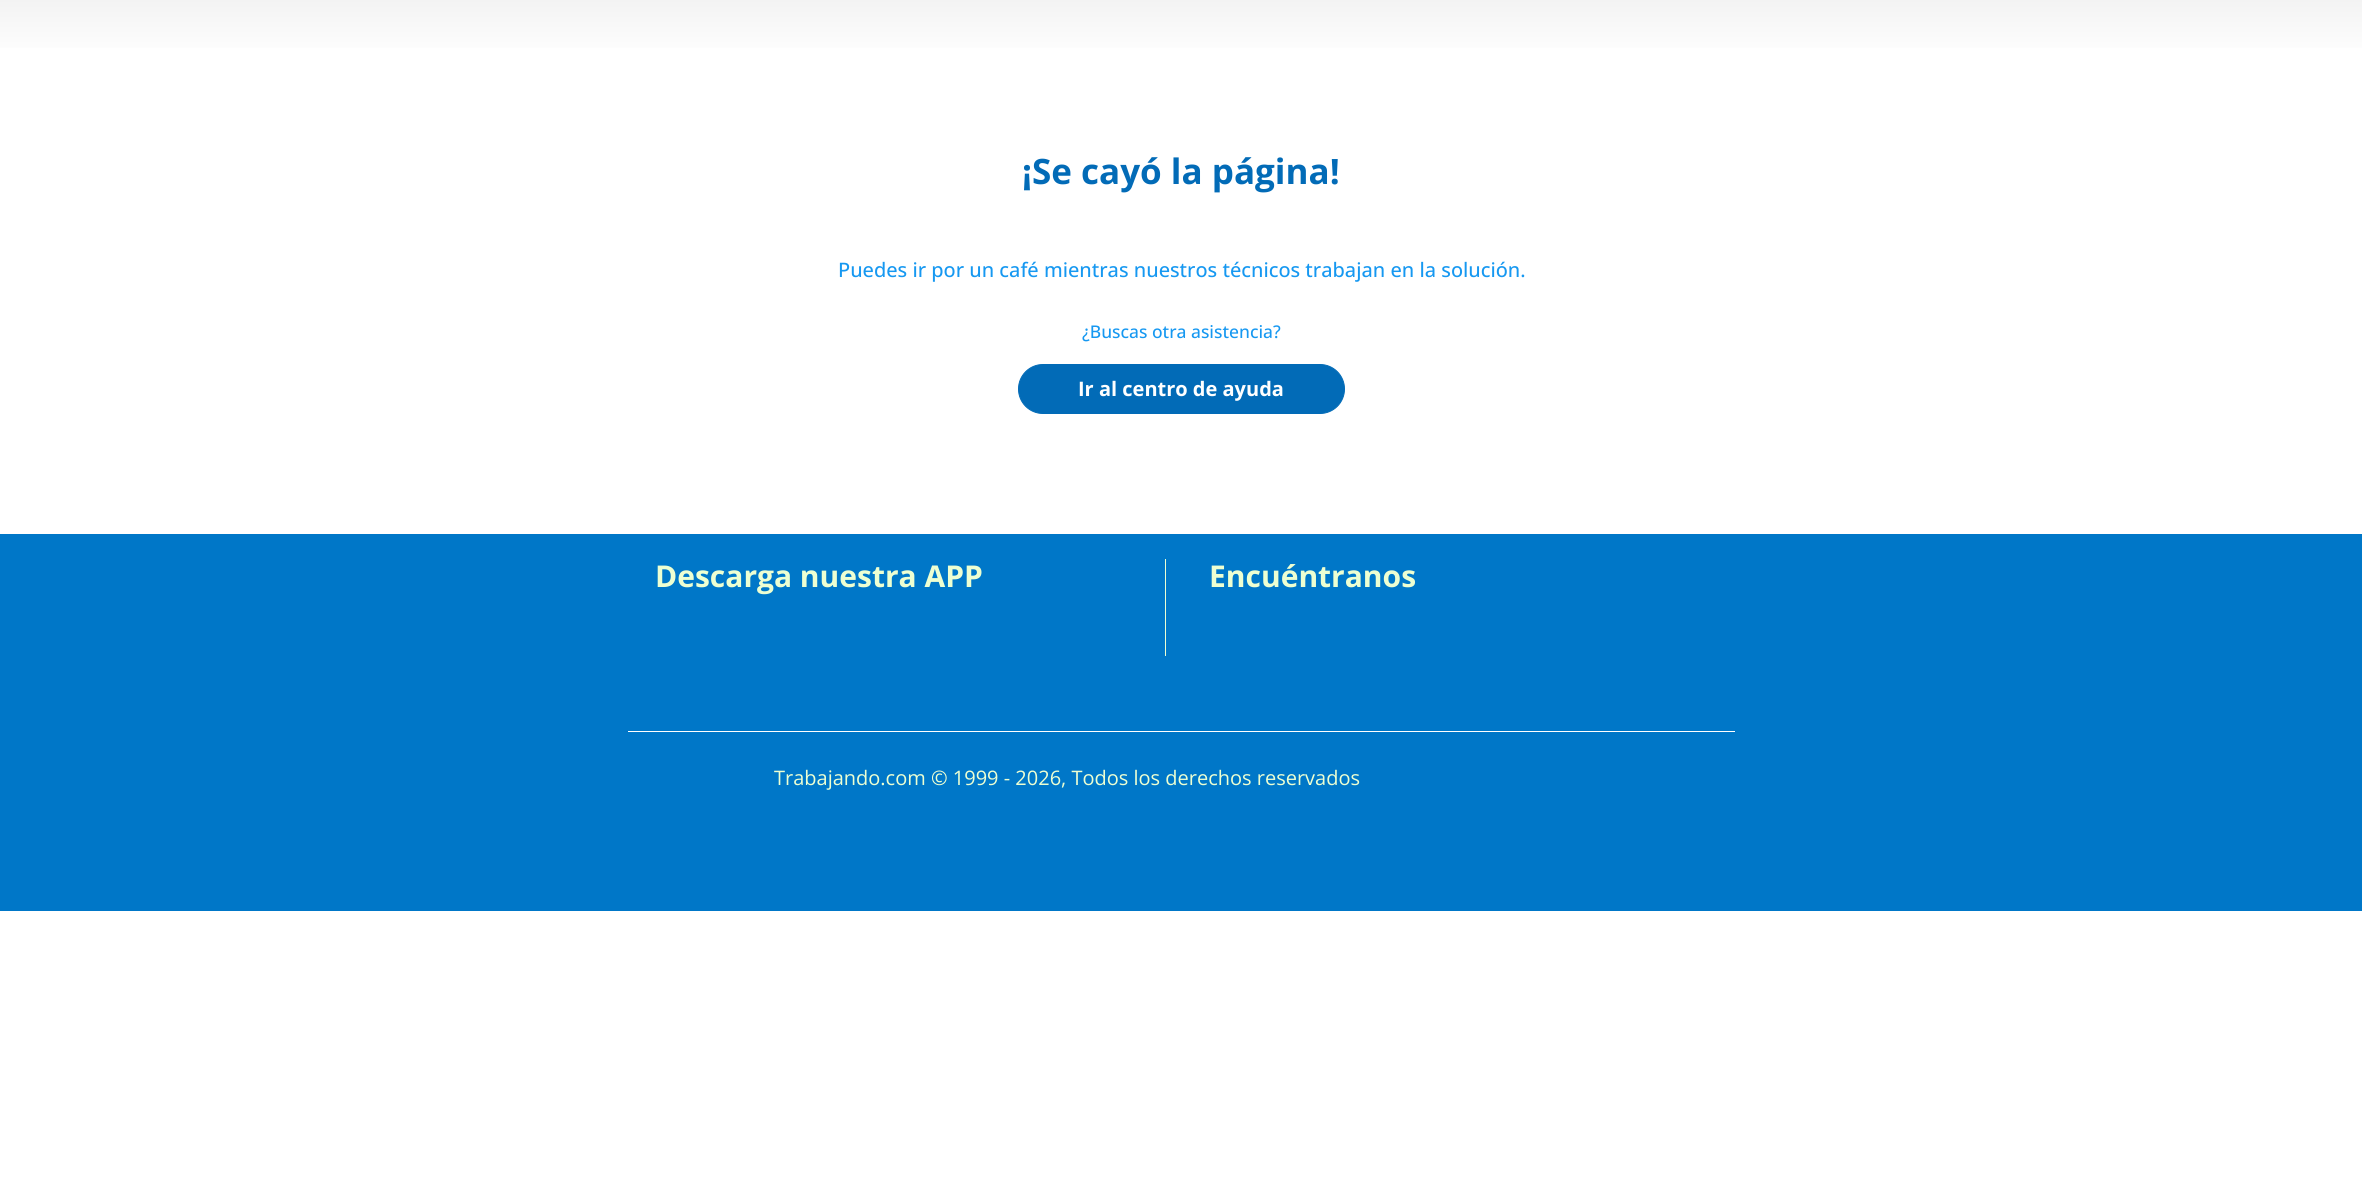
#include <cairo.h>
#include <math.h>
#include <stddef.h>

static cairo_t *c;
static void C(unsigned color){cairo_set_source_rgb(c, (color >> 16) / 255.0, (color >> 8 & 255) / 255.0, (color & 255) / 255.0);}
static void F(const char *family, double size, int italic, int bold){cairo_select_font_face(c, family, italic ? CAIRO_FONT_SLANT_ITALIC : CAIRO_FONT_SLANT_NORMAL,bold ? CAIRO_FONT_WEIGHT_BOLD : CAIRO_FONT_WEIGHT_NORMAL);cairo_set_font_size(c, size);}
static void T(double x, double y, const char *s){cairo_move_to(c, x, y);cairo_show_text(c, s);}
static void R(double x, double y, double w, double h){cairo_rectangle(c, x, y, w, h);cairo_fill(c);}
static void Q(double x, double y, double w, double h, double r){cairo_new_sub_path(c);cairo_arc(c, x + w - r, y + h - r, r, 0, M_PI / 2);cairo_arc(c, x + r, y + h - r, r, M_PI / 2, M_PI);cairo_arc(c, x + r, y + r, r, M_PI, 1.5 * M_PI);cairo_arc(c, x + w - r, y + r, r, 1.5 * M_PI, 2 * M_PI);cairo_close_path(c);}
int main(void) {
cairo_surface_t *surface = cairo_image_surface_create(CAIRO_FORMAT_RGB24, 2362, 1202);
c = cairo_create(surface);
cairo_font_options_t *options = cairo_font_options_create();
cairo_font_options_set_hint_metrics(options, CAIRO_HINT_METRICS_OFF);
cairo_font_options_set_hint_style(options, CAIRO_HINT_STYLE_NONE);
cairo_set_font_options(c, options);
cairo_set_miter_limit(c, 4);
cairo_pattern_t *gradient;
C(0xffffff);
cairo_paint(c);
gradient = cairo_pattern_create_linear(1181,0,1181,100);
cairo_pattern_add_color_stop_rgba(gradient,0,0.953,0.953,0.953,1);
cairo_pattern_add_color_stop_rgba(gradient,.6,1,1,1,1);
cairo_set_source(c,gradient);
cairo_pattern_destroy(gradient);
R(0,0,2362,48);
F("Open Sans",35,0,1);
C(0x026bb7);
T(1022,184,"¡Se cayó la página!");
F("Open Sans Medium",19.95,0,0);
C(0x1698f1);
T(838,277,"Puedes ir por un café mientras nuestros técnicos trabajan en la solución.");
F("Open Sans Medium",17.5,0,0);
T(1082,338,"¿Buscas otra asistencia?");
C(0x026bb7);
Q(1018.5,364.5,326,49,24.5);
cairo_fill_preserve(c);
cairo_set_line_width(c,1);
cairo_stroke(c);
F("Open Sans",20,0,1);
C(0xffffff);
T(1078,396,"Ir al centro de ayuda");
C(0x0077c8);
R(0,534,2362,377);
C(0xedffd2);
R(1165,559,1,97);
F("Open Sans",30,0,1);
T(655,587,"Descarga nuestra APP");
T(1209,587,"Encuéntranos");
C(0xffffff);
R(628,731,1107,1);
F("Open Sans",20,0,0);
C(0xedffd2);
T(774,785,"Trabajando.com © 1999 - 2026, Todos los derechos reservados");
cairo_surface_write_to_png(surface, "o.png");
cairo_font_options_destroy(options);
cairo_destroy(c);
cairo_surface_destroy(surface);
return 0;
}
